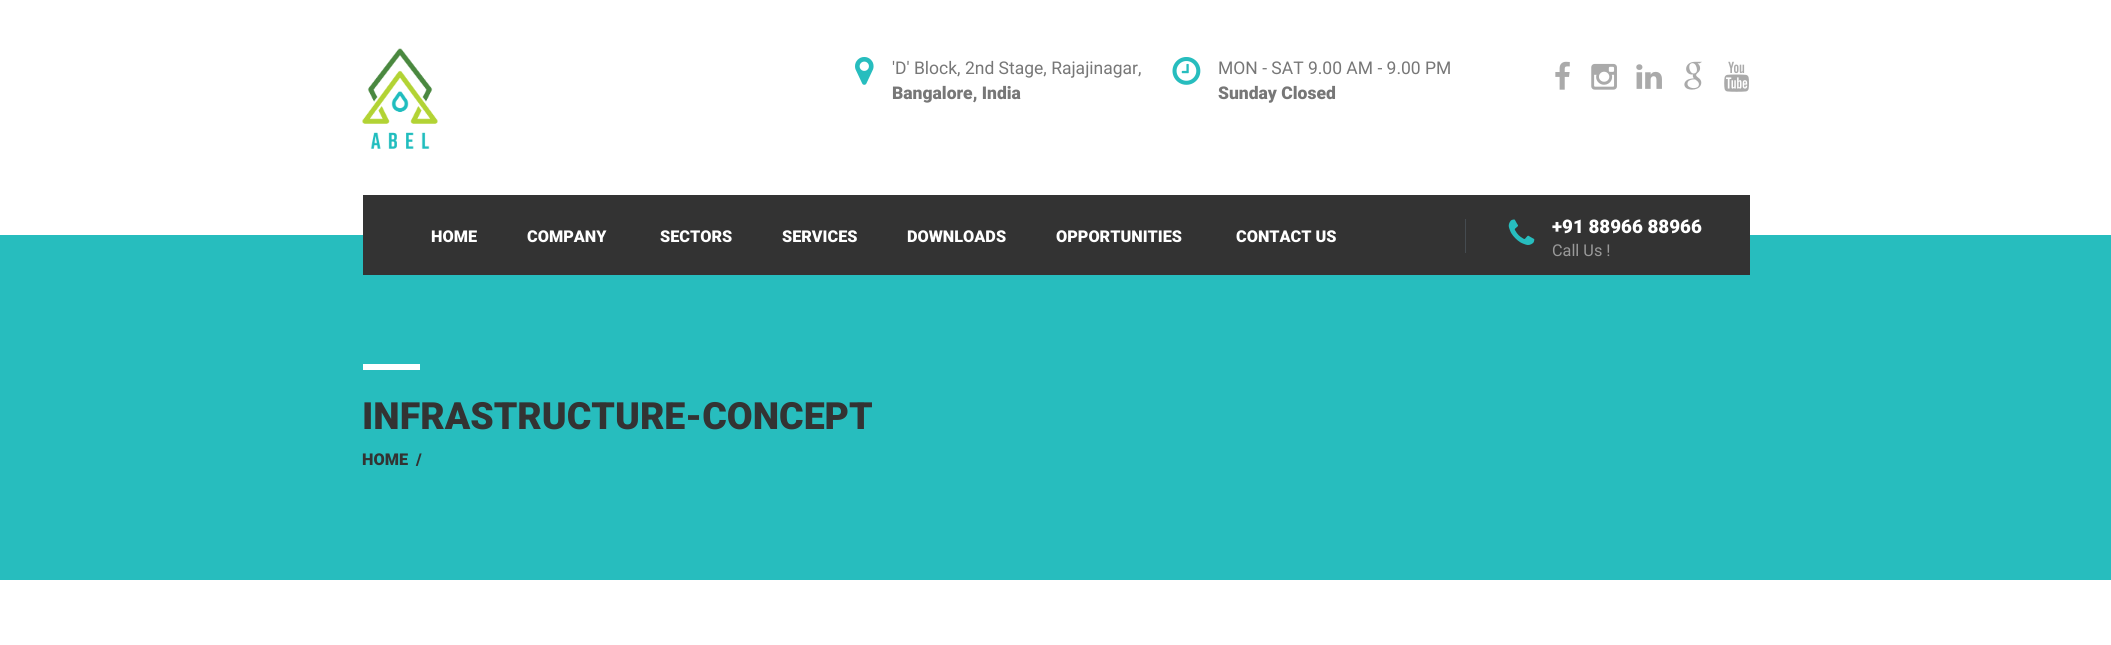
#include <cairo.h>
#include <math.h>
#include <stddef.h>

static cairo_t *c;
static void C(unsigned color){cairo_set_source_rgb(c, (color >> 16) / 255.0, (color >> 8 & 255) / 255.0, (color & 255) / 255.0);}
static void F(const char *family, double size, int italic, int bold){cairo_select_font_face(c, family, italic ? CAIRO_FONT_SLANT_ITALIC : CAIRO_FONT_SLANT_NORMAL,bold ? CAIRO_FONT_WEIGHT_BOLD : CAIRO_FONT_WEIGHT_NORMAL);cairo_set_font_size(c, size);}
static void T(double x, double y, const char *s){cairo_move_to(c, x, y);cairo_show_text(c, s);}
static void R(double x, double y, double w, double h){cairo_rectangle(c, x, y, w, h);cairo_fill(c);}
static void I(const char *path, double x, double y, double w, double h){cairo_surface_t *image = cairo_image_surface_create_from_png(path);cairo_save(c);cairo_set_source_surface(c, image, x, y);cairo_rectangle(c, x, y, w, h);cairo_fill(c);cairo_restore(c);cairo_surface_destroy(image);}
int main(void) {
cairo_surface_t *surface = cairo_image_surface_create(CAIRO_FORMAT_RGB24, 2111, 645);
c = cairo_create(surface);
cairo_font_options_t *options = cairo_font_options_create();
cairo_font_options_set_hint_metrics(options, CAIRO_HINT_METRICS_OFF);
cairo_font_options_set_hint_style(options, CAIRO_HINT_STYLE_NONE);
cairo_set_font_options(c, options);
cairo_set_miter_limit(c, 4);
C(0xffffff);
cairo_paint(c);
I("1.png",362,48,76,101);
I("2.png",855,57,19,28);
F("Roboto",17.5,0,0);
C(0x777777);
T(892,74,"'D' Block, 2nd Stage, Rajajinagar,");
F("Roboto Black",17.5,0,0);
T(892,99,"Bangalore, India");
I("3.png",1172,57,29,28);
F("Roboto",17.5,0,0);
T(1218,74,"MON - SAT 9.00 AM - 9.00 PM");
F("Roboto Black",17.5,0,0);
T(1218,99,"Sunday Closed");
I("4.png",1555,61,15,29);
I("5.png",1591,63,26,27);
I("6.png",1636,64,26,25);
I("7.png",1684,61,18,29);
I("8.png",1724,61,25,31);
C(0x27bdbe);
R(0,235,2111,345);
C(0x333333);
R(363,195,1387,80);
F("Roboto Black",16.25,0,0);
C(0xffffff);
T(431,242,"HOME");
T(527,242,"COMPANY");
T(660,242,"SECTORS");
T(782,242,"SERVICES");
T(907,242,"DOWNLOADS");
T(1056,242,"OPPORTUNITIES");
T(1236,242,"CONTACT US");
C(0x454b50);
R(1465,219,1,34);
I("9.png",1508,219,27,26);
F("Roboto Black",18.75,0,0);
C(0xffffff);
T(1552,233,"+91 88966 88966");
F("Roboto",16.25,0,0);
C(0x999999);
T(1552,256,"Call Us !");
C(0xffffff);
R(363,364,57,6);
F("Roboto Black",37.5,0,0);
C(0x333333);
T(362,429,"INFRASTRUCTURE-CONCEPT");
F("Roboto Black",16.25,0,0);
T(362,465,"HOME");
T(416,465,"/");
cairo_surface_write_to_png(surface, "o.png");
cairo_font_options_destroy(options);
cairo_destroy(c);
cairo_surface_destroy(surface);
return 0;
}
